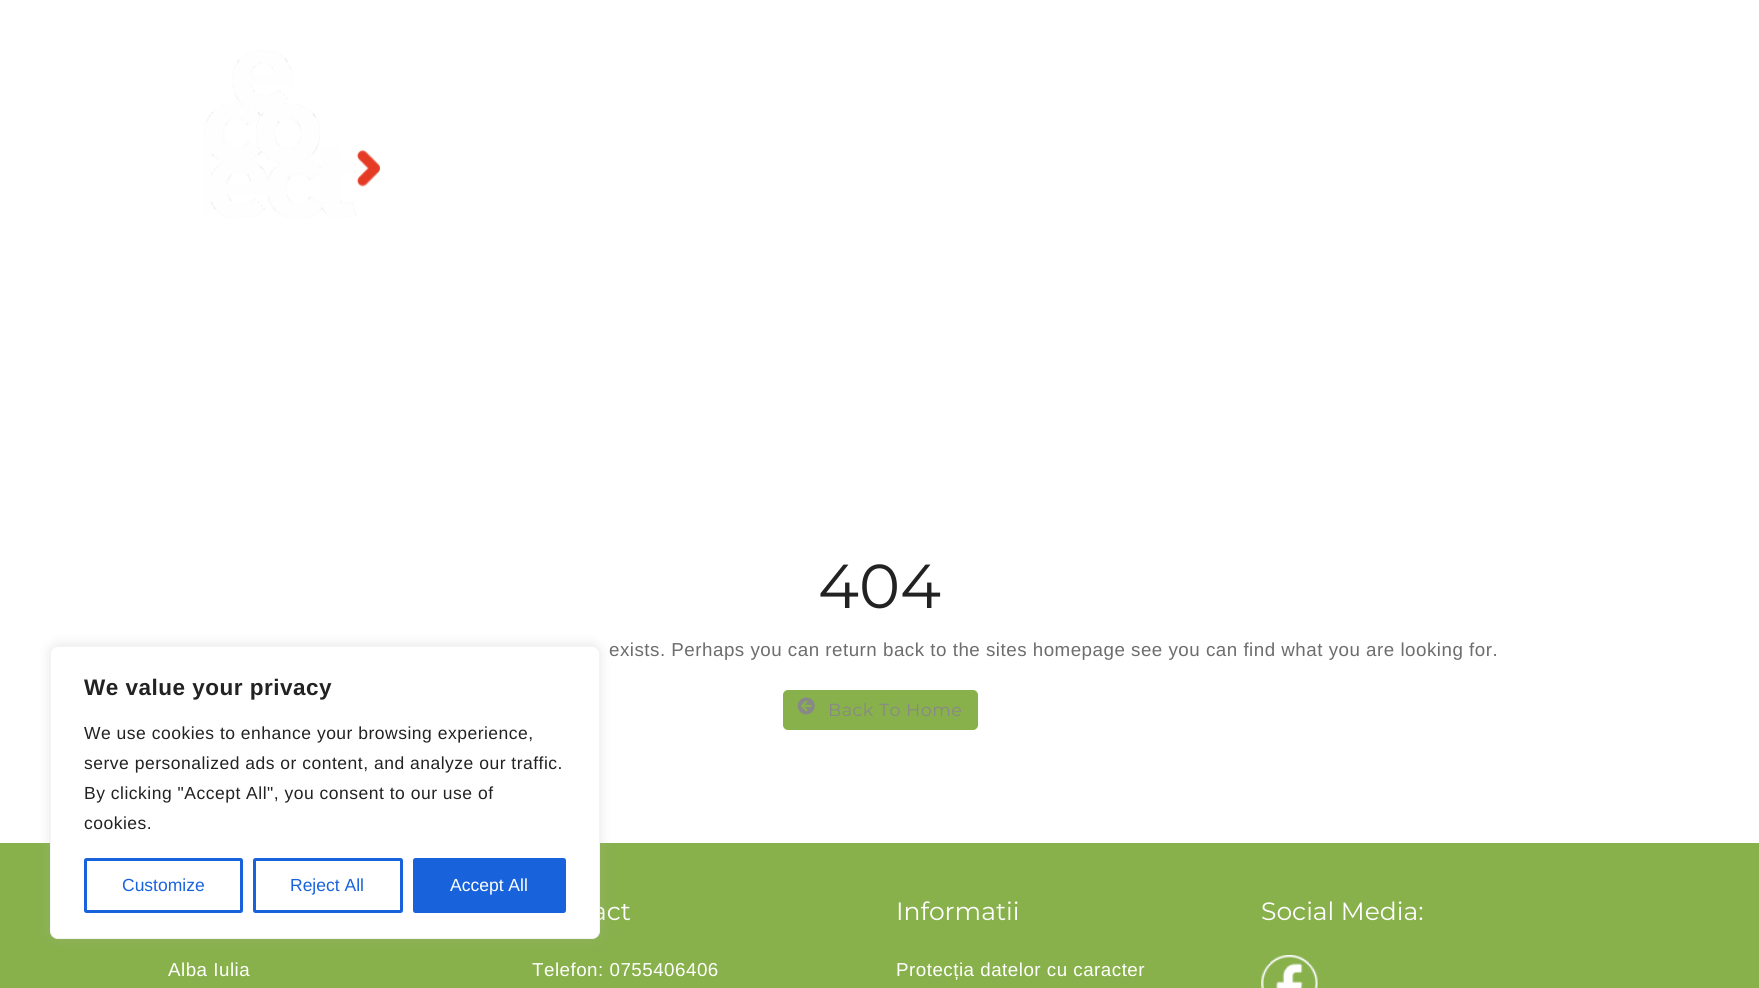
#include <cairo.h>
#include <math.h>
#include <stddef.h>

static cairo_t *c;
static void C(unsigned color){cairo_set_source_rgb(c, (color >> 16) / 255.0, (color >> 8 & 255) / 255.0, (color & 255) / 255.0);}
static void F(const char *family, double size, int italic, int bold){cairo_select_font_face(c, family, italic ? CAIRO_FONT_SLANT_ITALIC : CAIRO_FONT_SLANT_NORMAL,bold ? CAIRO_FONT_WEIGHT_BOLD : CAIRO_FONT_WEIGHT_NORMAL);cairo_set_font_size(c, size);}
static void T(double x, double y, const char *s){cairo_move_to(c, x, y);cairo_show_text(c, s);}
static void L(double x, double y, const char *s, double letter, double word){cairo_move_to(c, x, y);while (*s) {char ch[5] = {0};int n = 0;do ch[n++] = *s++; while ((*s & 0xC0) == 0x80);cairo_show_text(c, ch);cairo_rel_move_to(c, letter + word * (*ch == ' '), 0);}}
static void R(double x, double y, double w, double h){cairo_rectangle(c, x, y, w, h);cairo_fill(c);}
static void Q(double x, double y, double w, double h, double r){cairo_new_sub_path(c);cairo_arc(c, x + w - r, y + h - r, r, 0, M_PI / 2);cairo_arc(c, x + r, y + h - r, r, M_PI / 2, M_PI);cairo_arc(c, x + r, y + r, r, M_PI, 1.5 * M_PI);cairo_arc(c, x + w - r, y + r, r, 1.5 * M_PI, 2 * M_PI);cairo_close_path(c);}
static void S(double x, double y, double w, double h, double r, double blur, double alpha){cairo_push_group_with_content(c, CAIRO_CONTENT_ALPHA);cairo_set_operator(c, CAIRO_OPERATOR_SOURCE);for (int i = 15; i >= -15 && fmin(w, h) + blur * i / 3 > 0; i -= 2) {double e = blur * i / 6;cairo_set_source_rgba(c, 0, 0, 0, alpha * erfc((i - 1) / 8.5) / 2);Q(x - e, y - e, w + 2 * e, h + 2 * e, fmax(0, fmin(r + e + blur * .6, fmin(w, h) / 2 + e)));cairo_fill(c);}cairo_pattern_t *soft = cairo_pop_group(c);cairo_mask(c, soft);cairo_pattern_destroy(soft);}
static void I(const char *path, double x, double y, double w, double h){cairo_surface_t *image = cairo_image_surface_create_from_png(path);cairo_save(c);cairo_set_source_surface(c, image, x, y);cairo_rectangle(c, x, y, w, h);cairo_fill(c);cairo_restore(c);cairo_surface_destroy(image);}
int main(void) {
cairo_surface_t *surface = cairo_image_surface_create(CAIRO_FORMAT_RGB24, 1759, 988);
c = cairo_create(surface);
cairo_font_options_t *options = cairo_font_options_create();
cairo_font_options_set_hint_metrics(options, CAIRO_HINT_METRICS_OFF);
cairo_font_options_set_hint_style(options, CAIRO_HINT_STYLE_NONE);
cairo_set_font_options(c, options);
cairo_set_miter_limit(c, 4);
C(0xffffff);
cairo_paint(c);
I("1.png",204,50,176,168);
F("Montserrat Thin",62,0,0);
C(0x222222);
T(818,608,"404");
F("Liberation Sans",18.75,0,0);
C(0x6d6d6d);
L(609,656,"exists. Perhaps you can return back to the sites homepage see you can find what you are looking for.",.5,0);
C(0x88b14b);
Q(783,690,195,40,5);
cairo_fill(c);
I("2.png",797,697,18,18);
F("Montserrat Thin",17.5,0,0);
C(0x888888);
L(828,716,"Back To Home",.5,0);
C(0x88b14c);
R(0,843,1759,145);
F("Liberation Sans",18.75,0,0);
C(0xffffff);
L(168,976,"Alba Iulia",.5,0);
F("Montserrat Thin",25,0,0);
T(592,920,"act");
F("Liberation Sans",18.75,0,0);
L(532,976,"Telefon: 0755406406",.5,0);
F("Montserrat Thin",25,0,0);
T(896,920,"Informatii");
F("Liberation Sans",18.75,0,0);
L(896,976,"Protecția datelor cu caracter",.5,0);
F("Montserrat Thin",25,0,0);
T(1261,920,"Social Media:");
I("3.png",1261,955,57,33);
C(0xacabab);
S(50,645,550,293,8,6,.3);
C(0xffffff);
Q(50.5,646.5,549,292,7.5);
cairo_fill_preserve(c);
C(0xf4f4f4);
cairo_set_line_width(c,1);
cairo_stroke(c);
F("Liberation Sans",22.5,0,1);
C(0x222222);
L(84,695,"We value your privacy",.5,0);
F("Liberation Sans",17.5,0,0);
L(84,739,"We use cookies to enhance your browsing experience,",.5,0);
L(84,769,"serve personalized ads or content, and analyze our traffic.",.5,0);
L(84,799,"By clicking \"Accept All\", you consent to our use of",.5,0);
L(84,829,"cookies.",.5,0);
Q(85.5,859.5,156,52,1);
C(0x1863dc);
cairo_set_line_width(c,3);
cairo_stroke(c);
T(122,891,"Customize");
Q(254.5,859.5,147,52,1);
cairo_stroke(c);
T(290,891,"Reject All");
Q(414.5,859.5,150,52,1);
cairo_fill_preserve(c);
cairo_stroke(c);
C(0xffffff);
T(450,891,"Accept All");
cairo_surface_write_to_png(surface, "o.png");
cairo_font_options_destroy(options);
cairo_destroy(c);
cairo_surface_destroy(surface);
return 0;
}
